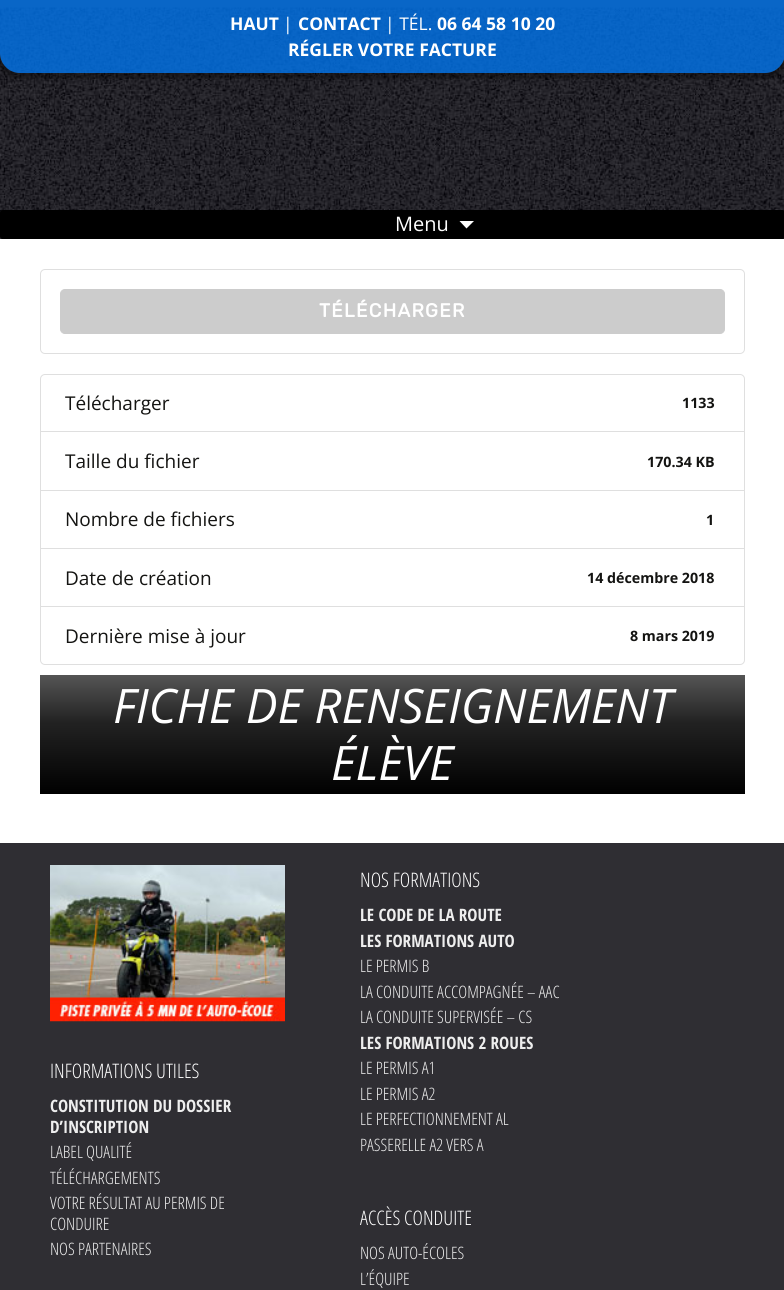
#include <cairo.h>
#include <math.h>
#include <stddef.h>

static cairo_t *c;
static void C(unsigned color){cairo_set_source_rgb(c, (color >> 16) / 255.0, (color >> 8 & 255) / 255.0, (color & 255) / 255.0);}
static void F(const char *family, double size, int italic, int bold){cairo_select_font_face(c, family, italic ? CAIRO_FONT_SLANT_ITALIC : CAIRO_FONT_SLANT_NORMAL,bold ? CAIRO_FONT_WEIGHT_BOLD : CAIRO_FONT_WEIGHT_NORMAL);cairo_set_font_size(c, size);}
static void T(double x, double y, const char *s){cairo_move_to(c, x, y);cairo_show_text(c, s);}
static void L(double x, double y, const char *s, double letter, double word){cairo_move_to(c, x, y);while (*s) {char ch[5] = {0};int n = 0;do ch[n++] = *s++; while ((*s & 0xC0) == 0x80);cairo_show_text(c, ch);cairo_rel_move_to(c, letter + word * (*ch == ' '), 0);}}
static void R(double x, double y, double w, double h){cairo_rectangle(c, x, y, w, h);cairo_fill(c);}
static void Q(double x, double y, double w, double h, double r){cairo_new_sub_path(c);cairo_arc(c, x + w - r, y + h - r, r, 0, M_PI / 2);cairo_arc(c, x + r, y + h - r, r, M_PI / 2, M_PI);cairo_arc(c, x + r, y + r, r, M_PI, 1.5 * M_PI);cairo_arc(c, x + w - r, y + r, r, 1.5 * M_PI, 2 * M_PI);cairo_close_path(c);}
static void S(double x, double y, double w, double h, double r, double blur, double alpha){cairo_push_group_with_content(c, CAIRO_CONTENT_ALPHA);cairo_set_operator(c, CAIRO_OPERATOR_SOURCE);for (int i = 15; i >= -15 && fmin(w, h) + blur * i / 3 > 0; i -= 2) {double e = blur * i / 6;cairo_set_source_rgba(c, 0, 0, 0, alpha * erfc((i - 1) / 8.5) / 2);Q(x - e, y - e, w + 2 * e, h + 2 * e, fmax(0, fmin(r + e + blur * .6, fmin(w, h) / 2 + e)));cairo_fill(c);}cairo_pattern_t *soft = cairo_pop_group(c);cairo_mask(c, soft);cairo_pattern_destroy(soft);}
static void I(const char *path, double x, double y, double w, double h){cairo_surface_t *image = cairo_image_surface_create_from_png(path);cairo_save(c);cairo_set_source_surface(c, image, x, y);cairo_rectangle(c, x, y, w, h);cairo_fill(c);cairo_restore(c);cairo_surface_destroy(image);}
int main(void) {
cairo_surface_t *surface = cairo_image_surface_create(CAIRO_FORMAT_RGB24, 784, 1290);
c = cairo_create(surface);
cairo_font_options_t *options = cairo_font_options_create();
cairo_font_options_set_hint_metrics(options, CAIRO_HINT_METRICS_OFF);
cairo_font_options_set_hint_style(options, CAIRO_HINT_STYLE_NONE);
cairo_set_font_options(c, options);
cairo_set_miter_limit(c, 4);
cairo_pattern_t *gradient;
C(0xffffff);
cairo_paint(c);
C(0x2f2e33);
R(0,0,784,239);
I("1.png",0,7,784,206);
cairo_save(c);
cairo_set_fill_rule(c,CAIRO_FILL_RULE_EVEN_ODD);
cairo_new_path(c);
cairo_move_to(c,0,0);
cairo_line_to(c,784,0);
cairo_line_to(c,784,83);
cairo_line_to(c,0,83);
cairo_close_path(c);
cairo_move_to(c,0,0);
cairo_line_to(c,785,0);
cairo_line_to(c,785,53);
cairo_curve_to(c,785,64,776,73,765,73);
cairo_line_to(c,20,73);
cairo_curve_to(c,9,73,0,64,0,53);
cairo_close_path(c);
cairo_clip(c);
C(0x000000);
S(-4,-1,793,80,24,1,.3);
cairo_restore(c);
cairo_set_source_rgba(c,0,0.455,0.925,0.8);
cairo_new_path(c);
cairo_move_to(c,0,0);
cairo_line_to(c,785,0);
cairo_line_to(c,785,53);
cairo_curve_to(c,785,64,776,73,765,73);
cairo_line_to(c,20,73);
cairo_curve_to(c,9,73,0,64,0,53);
cairo_close_path(c);
cairo_fill(c);
F("Open Sans",17.5,0,1);
C(0xffffff);
T(230,30,"HAUT");
F("Open Sans",17.5,0,0);
T(283,30,"|");
F("Open Sans",17.5,0,1);
T(298,30,"CONTACT");
F("Open Sans",17.5,0,0);
T(385,30,"| TÉL.");
F("Open Sans",17.5,0,1);
T(437,30,"06 64 58 10 20");
T(288,56,"RÉGLER VOTRE FACTURE");
C(0x000000);
Q(0,210,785,29,2.5);
cairo_fill(c);
F("Open Sans",20,0,0);
C(0xffffff);
T(395,231,"Menu");
cairo_new_path(c);
cairo_move_to(c,459.5,221);
cairo_line_to(c,466.5,228.5);
cairo_line_to(c,474,221);
cairo_close_path(c);
cairo_fill(c);
Q(40.5,269.5,704,84,4.5);
C(0xdfdfdf);
cairo_set_line_width(c,1);
cairo_stroke(c);
C(0xcccccc);
Q(60.5,289.5,664,44,4.5);
cairo_fill_preserve(c);
cairo_stroke(c);
F("Rubik",19,0,1);
C(0xffffff);
L(319,317,"TÉLÉCHARGER",1.25,0);
cairo_new_path(c);
cairo_move_to(c,45,374.5);
cairo_line_to(c,740,374.5);
cairo_curve_to(c,742.5,374.5,744.5,376.5,744.5,379);
cairo_line_to(c,744.5,432.5);
cairo_line_to(c,40.5,432.5);
cairo_line_to(c,40.5,379);
cairo_curve_to(c,40.5,376.5,42.5,374.5,45,374.5);
cairo_close_path(c);
C(0xdfdfdf);
cairo_stroke(c);
F("Open Sans",19,0,0);
C(0x141412);
T(65,410,"Télécharger");
F("Open Sans",14.25,0,1);
T(682,408,"1133");
C(0xffffff);
R(41,432,703,1);
cairo_rectangle(c,40.5,431.5,704,59);
C(0xdfdfdf);
cairo_stroke(c);
F("Open Sans",19,0,0);
C(0x141412);
T(65,468,"Taille du fichier");
F("Open Sans",14.25,0,1);
T(647,467,"170.34 KB");
cairo_rectangle(c,40.5,490.5,704,58);
C(0xdfdfdf);
cairo_stroke(c);
F("Open Sans",19,0,0);
C(0x141412);
T(65,526,"Nombre de fichiers");
F("Open Sans",14.25,0,1);
T(706,525,"1");
cairo_rectangle(c,40.5,548.5,704,59);
C(0xdfdfdf);
cairo_stroke(c);
F("Open Sans",19,0,0);
C(0x141412);
T(65,585,"Date de création");
F("Open Sans",14.25,0,1);
T(587,583,"14 décembre 2018");
C(0xffffff);
cairo_new_path(c);
cairo_move_to(c,40.5,606.5);
cairo_line_to(c,744.5,606.5);
cairo_line_to(c,744.5,660);
cairo_curve_to(c,744.5,662.5,742.5,664.5,740,664.5);
cairo_line_to(c,45,664.5);
cairo_curve_to(c,42.5,664.5,40.5,662.5,40.5,660);
cairo_close_path(c);
cairo_fill_preserve(c);
C(0xdfdfdf);
cairo_stroke(c);
F("Open Sans",19,0,0);
C(0x141412);
T(65,643,"Dernière mise à jour");
F("Open Sans",14.25,0,1);
T(630,641,"8 mars 2019");
gradient = cairo_pattern_create_linear(393,675,393,794);
cairo_pattern_add_color_stop_rgba(gradient,0,0.333,0.333,0.333,1);
cairo_pattern_add_color_stop_rgba(gradient,.4,0.133,0.133,0.133,1);
cairo_pattern_add_color_stop_rgba(gradient,1,0,0,0,1);
cairo_set_source(c,gradient);
cairo_pattern_destroy(gradient);
R(40,675,705,119);
F("Open Sans",47.5,1,0);
C(0xffffff);
T(113,723,"FICHE DE RENSEIGNEMENT");
T(331,780,"ÉLÈVE");
C(0x2f2e33);
R(0,843,784,447);
I("2.png",50,865,235,157);
F("Open Sans Condensed Light",20,0,0);
C(0xffffff);
T(360,887,"NOS FORMATIONS");
F("Open Sans Condensed",17.1,0,1);
C(0xeeeeee);
T(360,921,"LE CODE DE LA ROUTE");
T(360,947,"LES FORMATIONS AUTO");
F("Open Sans Condensed Light",17.1,0,0);
T(360,972,"LE PERMIS B");
T(360,998,"LA CONDUITE ACCOMPAGNÉE – AAC");
T(360,1023,"LA CONDUITE SUPERVISÉE – CS");
F("Open Sans Condensed",17.1,0,1);
T(360,1049,"LES FORMATIONS 2 ROUES");
F("Open Sans Condensed Light",17.1,0,0);
T(360,1074,"LE PERMIS A1");
T(360,1100,"LE PERMIS A2");
T(360,1125,"LE PERFECTIONNEMENT AL");
T(360,1151,"PASSERELLE A2 VERS A");
F("Open Sans Condensed Light",20,0,0);
C(0xffffff);
T(50,1078,"INFORMATIONS UTILES");
F("Open Sans Condensed",17.1,0,1);
C(0xeeeeee);
T(50,1112,"CONSTITUTION DU DOSSIER");
T(50,1133,"D’INSCRIPTION");
F("Open Sans Condensed Light",17.1,0,0);
T(50,1158,"LABEL QUALITÉ");
T(50,1184,"TÉLÉCHARGEMENTS");
T(50,1209,"VOTRE RÉSULTAT AU PERMIS DE");
T(50,1230,"CONDUIRE");
T(50,1255,"NOS PARTENAIRES");
F("Open Sans Condensed Light",20,0,0);
C(0xffffff);
T(360,1225,"ACCÈS CONDUITE");
F("Open Sans Condensed Light",17.1,0,0);
C(0xeeeeee);
T(360,1259,"NOS AUTO-ÉCOLES");
T(360,1285,"L’ÉQUIPE");
cairo_surface_write_to_png(surface, "o.png");
cairo_font_options_destroy(options);
cairo_destroy(c);
cairo_surface_destroy(surface);
return 0;
}
